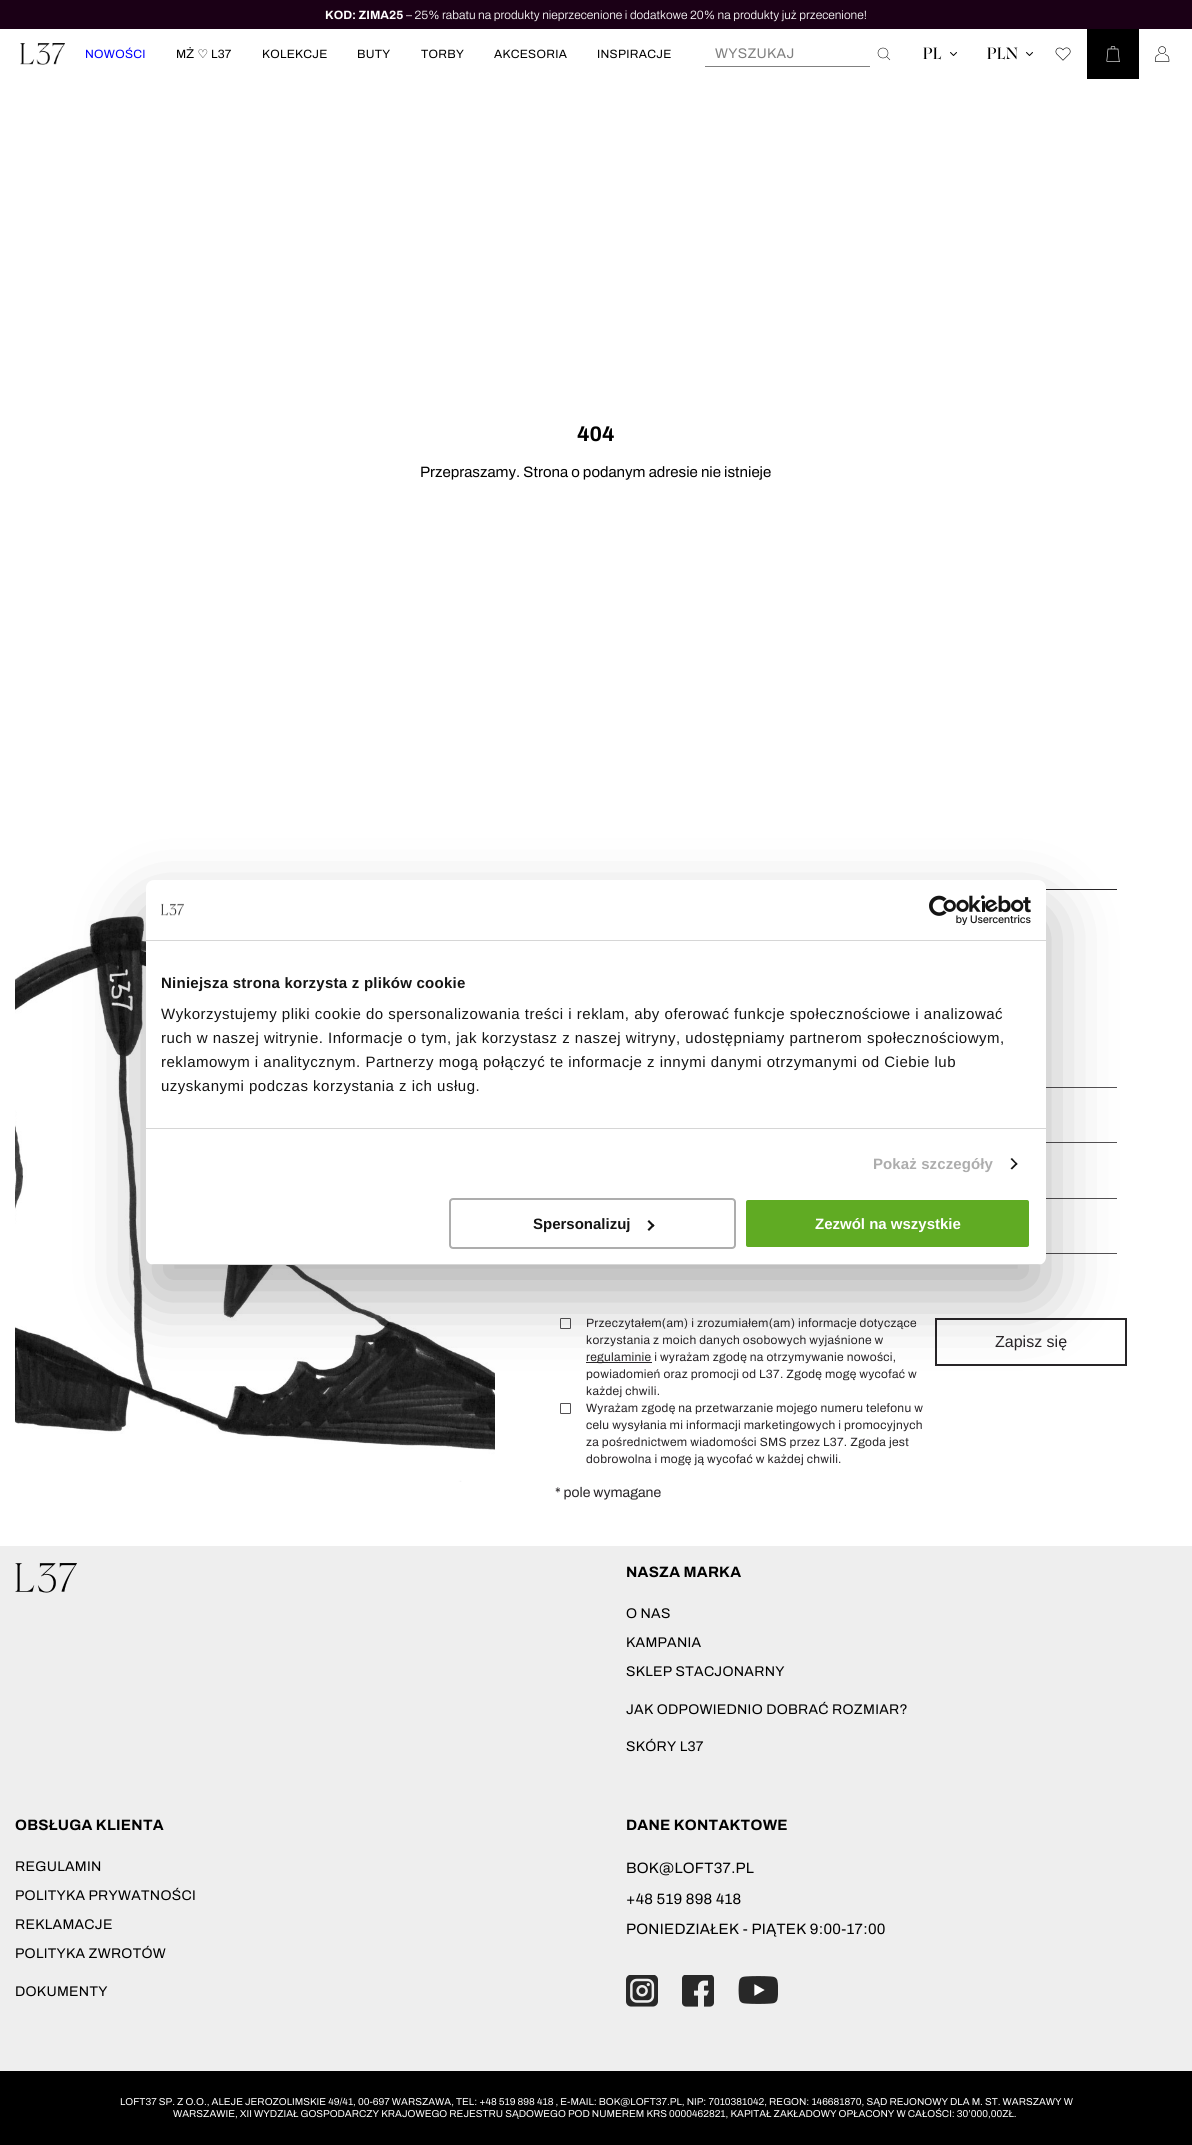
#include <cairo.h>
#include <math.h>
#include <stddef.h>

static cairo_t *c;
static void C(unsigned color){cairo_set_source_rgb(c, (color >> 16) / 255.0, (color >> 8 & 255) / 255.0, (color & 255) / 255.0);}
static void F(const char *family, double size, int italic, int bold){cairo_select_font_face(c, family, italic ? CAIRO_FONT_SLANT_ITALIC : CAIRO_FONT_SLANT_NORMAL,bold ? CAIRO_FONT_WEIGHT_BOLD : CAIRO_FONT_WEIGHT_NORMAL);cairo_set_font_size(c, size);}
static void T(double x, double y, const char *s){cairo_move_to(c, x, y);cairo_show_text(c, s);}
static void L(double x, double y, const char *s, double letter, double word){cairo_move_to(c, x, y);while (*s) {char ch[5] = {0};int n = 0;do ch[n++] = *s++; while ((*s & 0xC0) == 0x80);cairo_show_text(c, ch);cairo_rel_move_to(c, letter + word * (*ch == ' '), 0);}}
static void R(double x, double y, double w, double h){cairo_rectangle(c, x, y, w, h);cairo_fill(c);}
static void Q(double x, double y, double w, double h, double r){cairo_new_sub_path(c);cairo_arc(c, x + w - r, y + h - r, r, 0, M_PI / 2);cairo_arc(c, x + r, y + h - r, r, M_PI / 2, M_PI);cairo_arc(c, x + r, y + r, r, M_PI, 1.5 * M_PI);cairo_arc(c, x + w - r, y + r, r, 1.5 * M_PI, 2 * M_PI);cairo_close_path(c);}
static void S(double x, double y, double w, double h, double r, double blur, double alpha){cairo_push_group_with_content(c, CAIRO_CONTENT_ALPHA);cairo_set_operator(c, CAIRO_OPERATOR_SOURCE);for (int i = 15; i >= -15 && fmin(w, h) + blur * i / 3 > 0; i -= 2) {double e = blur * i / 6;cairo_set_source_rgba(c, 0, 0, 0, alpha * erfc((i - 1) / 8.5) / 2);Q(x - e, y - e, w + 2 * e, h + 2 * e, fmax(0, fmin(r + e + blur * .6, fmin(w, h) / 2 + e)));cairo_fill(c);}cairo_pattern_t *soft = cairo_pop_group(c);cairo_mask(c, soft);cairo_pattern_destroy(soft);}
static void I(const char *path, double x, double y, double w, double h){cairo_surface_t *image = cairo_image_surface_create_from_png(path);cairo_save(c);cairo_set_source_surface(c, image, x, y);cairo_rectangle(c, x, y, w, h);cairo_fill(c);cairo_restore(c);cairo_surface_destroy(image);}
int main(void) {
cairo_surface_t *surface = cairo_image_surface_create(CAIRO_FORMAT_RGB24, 1192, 2145);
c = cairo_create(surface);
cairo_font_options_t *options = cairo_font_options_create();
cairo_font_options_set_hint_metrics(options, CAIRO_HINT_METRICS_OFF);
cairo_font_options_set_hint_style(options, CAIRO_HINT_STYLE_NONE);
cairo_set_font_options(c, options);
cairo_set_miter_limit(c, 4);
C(0xffffff);
cairo_paint(c);
C(0x1b0016);
R(0,0,1192,29);
F("Archivo",12,0,1);
C(0xffffff);
T(325,19,"KOD: ZIMA25");
F("Archivo Light",12,0,0);
T(406,19,"– 25% rabatu na produkty nieprzecenione i dodatkowe 20% na produkty już przecenione!");
I("1.png",20,43,45,22);
F("Archivo",12,0,0);
C(0x0000ff);
L(85,58,"NOWOŚCI",.28,0);
C(0x000000);
L(176,58,"M",.28,0);
F("DejaVu Sans",12,0,0);
L(186,58,"Ż ♡",.28,-1);
F("Archivo",12,0,0);
L(211,58,"L37",.28,0);
L(262,58,"KOLEKCJE",.28,0);
L(357,58,"BUTY",.28,0);
L(421,58,"TORBY",.28,0);
L(494,58,"AKCESORIA",.28,0);
L(597,58,"INSPIRACJE",.28,0);
F("Archivo",14,0,0);
C(0x808080);
L(715,58,"WYSZUKAJ",.28,0);
R(705,66,165,1);
I("2.png",877,47,14,14);
F("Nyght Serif",16,0,0);
C(0x000000);
L(923,59,"PL",.5,0);
cairo_new_path(c);
cairo_move_to(c,956.5,52.5);
cairo_line_to(c,953.5,55.5);
cairo_line_to(c,950.5,52.5);
cairo_set_line_width(c,1);
cairo_set_line_cap(c,CAIRO_LINE_CAP_ROUND);
cairo_set_line_join(c,CAIRO_LINE_JOIN_ROUND);
cairo_stroke(c);
L(987,59,"PLN",.5,0);
cairo_new_path(c);
cairo_move_to(c,1032.5,52.5);
cairo_line_to(c,1029.5,55.5);
cairo_line_to(c,1026.5,52.5);
cairo_stroke(c);
I("3.png",1055,47,16,14);
R(1087,29,52,50);
I("4.png",1106,46,14,16);
I("5.png",1154,46,16,16);
F("Archivo",21,0,1);
T(577,441,"404");
F("Archivo",15,0,0);
T(420,477,"Przepraszamy. Strona o podanym adresie nie istnieje");
I("8.png",15,916,480,566);
C(0x282528);
R(1046,889,71,1);
C(0x535153);
R(1046,1087,71,1);
R(1046,1142,71,1);
R(1046,1198,71,1);
R(1046,1253,71,1);
Q(560.5,1318.5,10,10,.5);
cairo_set_line_cap(c,CAIRO_LINE_CAP_BUTT);
cairo_set_line_join(c,CAIRO_LINE_JOIN_MITER);
cairo_stroke(c);
C(0x282528);
R(586,1362,66,1);
cairo_rectangle(c,936,1319,190,46);
cairo_set_line_width(c,2);
cairo_stroke(c);
C(0x000000);
S(146,912,900,385,8,34,.3);
C(0xffffff);
Q(146,880,900,385,8);
cairo_fill(c);
C(0xd6d6d6);
R(146,940,900,1);
I("6.png",161,903,23,13);
I("7.png",929,895,102,30);
R(146,1128,900,1);
F("Liberation Sans",15,0,1);
C(0x141414);
L(161,988,"Niniejsza strona korzysta z plików cookie",.25,0);
F("Liberation Sans",15,0,0);
L(161,1019,"Wykorzystujemy pliki cookie do spersonalizowania treści i reklam, aby oferować funkcje społecznościowe i analizować",.5,0);
L(161,1043,"ruch w naszej witrynie. Informacje o tym, jak korzystasz z naszej witryny, udostępniamy partnerom społecznościowym,",.5,0);
L(161,1067,"reklamowym i analitycznym. Partnerzy mogą połączyć te informacje z innymi danymi otrzymanymi od Ciebie lub",.5,0);
L(161,1091,"uzyskanymi podczas korzystania z ich usług.",.5,0);
F("Liberation Sans",15,0,1);
C(0xadadad);
L(873,1169,"Pokaż szczegóły",.1,0);
C(0x141414);
cairo_new_path(c);
cairo_move_to(c,1012,1158);
cairo_line_to(c,1017.5,1164);
cairo_line_to(c,1016.5,1165);
cairo_line_to(c,1010.5,1159);
cairo_close_path(c);
cairo_fill(c);
cairo_new_path(c);
cairo_move_to(c,1016.5,1162.5);
cairo_line_to(c,1017.5,1164);
cairo_line_to(c,1012,1169.5);
cairo_line_to(c,1010.5,1168.5);
cairo_close_path(c);
cairo_fill(c);
cairo_save(c);
Q(146,880,900,385,8);
cairo_clip(c);
C(0xd6d6d6);
R(146,1264,900,1);
cairo_restore(c);
Q(450,1199,285,49,3);
C(0xadadad);
cairo_stroke(c);
C(0x141414);
T(533,1229,"Spersonalizuj");
cairo_new_path(c);
cairo_move_to(c,649,1220);
cairo_line_to(c,654.5,1225.5);
cairo_line_to(c,653,1227);
cairo_line_to(c,647.5,1221.5);
cairo_close_path(c);
cairo_fill(c);
cairo_new_path(c);
cairo_move_to(c,653,1224);
cairo_line_to(c,654.5,1225.5);
cairo_line_to(c,649,1231);
cairo_line_to(c,647.5,1229.5);
cairo_close_path(c);
cairo_fill(c);
C(0x60ab23);
Q(745,1199,285,49,3);
cairo_fill_preserve(c);
C(0xffffff);
cairo_stroke(c);
T(815,1229,"Zezwól na wszystkie");
F("Archivo",12,0,0);
C(0x282528);
L(586,1327,"Przeczytałem(am) i zrozumiałem(am) informacje dotyczące",.28,0);
L(586,1344,"korzystania z moich danych osobowych wyjaśnione w",.28,0);
L(586,1361,"regulaminie i wyrażam zgodę na otrzymywanie nowości,",.28,0);
L(586,1378,"powiadomień oraz promocji od L37. Zgodę mogę wycofać w",.28,0);
L(586,1395,"każdej chwili.",.28,0);
Q(560.5,1403.5,10,10,.5);
C(0x535153);
cairo_set_line_width(c,1);
cairo_stroke(c);
C(0x282528);
L(586,1412,"Wyrażam zgodę na przetwarzanie mojego numeru telefonu w",.28,0);
L(586,1429,"celu wysyłania mi informacji marketingowych i promocyjnych",.28,0);
L(586,1446,"za pośrednictwem wiadomości SMS przez L37. Zgoda jest",.28,0);
L(586,1463,"dobrowolna i mogę ją wycofać w każdej chwili.",.28,0);
F("Liberation Sans",16,0,0);
T(995,1347,"Zapisz się");
F("Archivo",14,0,0);
T(555,1497,"* pole wymagane");
C(0xeeeeee);
R(0,1546,1192,525);
I("9.png",15,1563,62,30);
F("Archivo",15,0,1);
C(0x000000);
L(626,1577,"NASZA MARKA",.25,0);
F("Archivo",14,0,0);
L(626,1618,"O NAS",.28,0);
L(626,1647,"KAMPANIA",.28,0);
L(626,1676,"SKLEP STACJONARNY",.28,0);
L(626,1714,"JAK ODPOWIEDNIO DOBRAĆ ROZMIAR?",.28,0);
L(626,1751,"SKÓRY L37",.28,0);
F("Archivo",15,0,1);
L(15,1830,"OBSŁUGA KLIENTA",.25,0);
F("Archivo",14,0,0);
L(15,1871,"REGULAMIN",.28,0);
L(15,1900,"POLITYKA PRYWATNOŚCI",.28,0);
L(15,1929,"REKLAMACJE",.28,0);
L(15,1958,"POLITYKA ZWROTÓW",.28,0);
L(15,1996,"DOKUMENTY",.28,0);
F("Archivo",15,0,1);
L(626,1830,"DANE KONTAKTOWE",.25,0);
F("Archivo",15,0,0);
L(626,1873,"BOK@LOFT37.PL",.28,0);
L(626,1904,"+48 519 898 418",.28,0);
L(626,1934,"PONIEDZIAŁEK - PIĄTEK 9:00-17:00",.28,0);
I("10.png",626,1975,32,32);
I("11.png",682,1975,32,32);
I("12.png",738,1976,40,28);
R(0,2071,1192,74);
F("Archivo",10,0,0);
C(0xffffff);
T(120,2105,"LOFT37 SP. Z O.O., ALEJE JEROZOLIMSKIE 49/41, 00-697 WARSZAWA, TEL: +48 519 898 418 , E-MAIL: BOK@LOFT37.PL, NIP: 7010381042, REGON: 146681870, SĄD REJONOWY DLA M. ST. WARSZAWY W");
T(173,2117,"WARSZAWIE, XII WYDZIAŁ GOSPODARCZY KRAJOWEGO REJESTRU SĄDOWEGO POD NUMEREM KRS 0000462821, KAPITAŁ ZAKŁADOWY OPŁACONY W CAŁOŚCI: 30’000,00ZŁ.");
cairo_surface_write_to_png(surface, "o.png");
cairo_font_options_destroy(options);
cairo_destroy(c);
cairo_surface_destroy(surface);
return 0;
}
